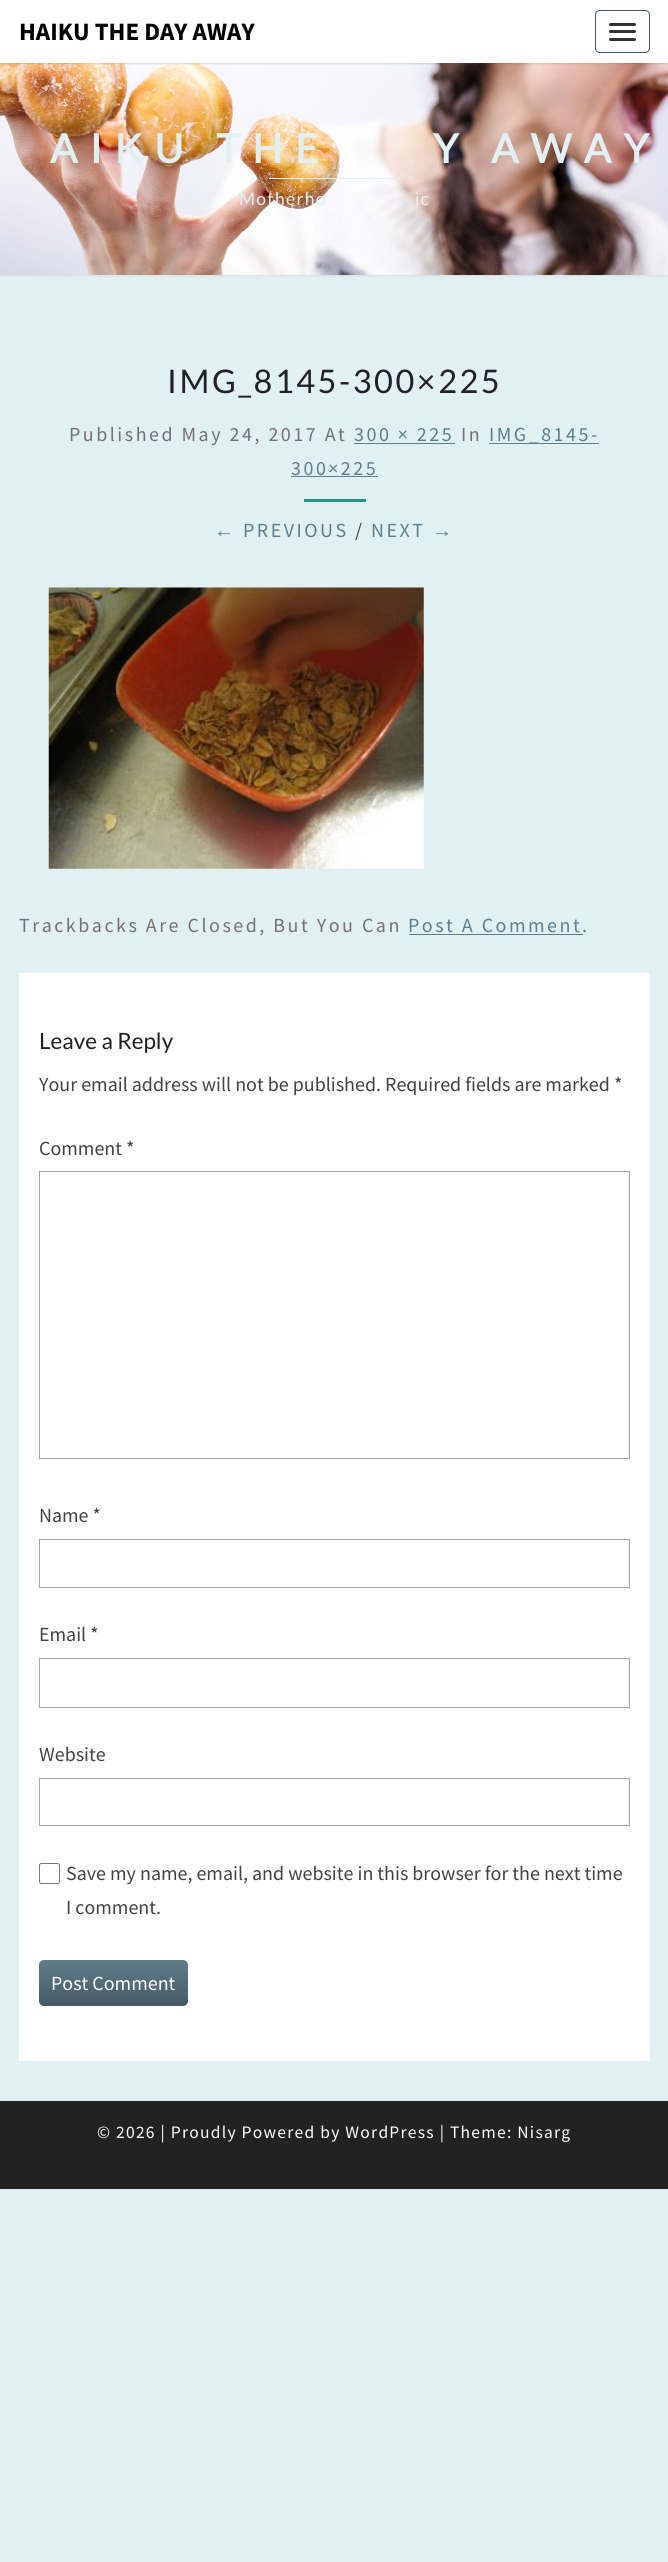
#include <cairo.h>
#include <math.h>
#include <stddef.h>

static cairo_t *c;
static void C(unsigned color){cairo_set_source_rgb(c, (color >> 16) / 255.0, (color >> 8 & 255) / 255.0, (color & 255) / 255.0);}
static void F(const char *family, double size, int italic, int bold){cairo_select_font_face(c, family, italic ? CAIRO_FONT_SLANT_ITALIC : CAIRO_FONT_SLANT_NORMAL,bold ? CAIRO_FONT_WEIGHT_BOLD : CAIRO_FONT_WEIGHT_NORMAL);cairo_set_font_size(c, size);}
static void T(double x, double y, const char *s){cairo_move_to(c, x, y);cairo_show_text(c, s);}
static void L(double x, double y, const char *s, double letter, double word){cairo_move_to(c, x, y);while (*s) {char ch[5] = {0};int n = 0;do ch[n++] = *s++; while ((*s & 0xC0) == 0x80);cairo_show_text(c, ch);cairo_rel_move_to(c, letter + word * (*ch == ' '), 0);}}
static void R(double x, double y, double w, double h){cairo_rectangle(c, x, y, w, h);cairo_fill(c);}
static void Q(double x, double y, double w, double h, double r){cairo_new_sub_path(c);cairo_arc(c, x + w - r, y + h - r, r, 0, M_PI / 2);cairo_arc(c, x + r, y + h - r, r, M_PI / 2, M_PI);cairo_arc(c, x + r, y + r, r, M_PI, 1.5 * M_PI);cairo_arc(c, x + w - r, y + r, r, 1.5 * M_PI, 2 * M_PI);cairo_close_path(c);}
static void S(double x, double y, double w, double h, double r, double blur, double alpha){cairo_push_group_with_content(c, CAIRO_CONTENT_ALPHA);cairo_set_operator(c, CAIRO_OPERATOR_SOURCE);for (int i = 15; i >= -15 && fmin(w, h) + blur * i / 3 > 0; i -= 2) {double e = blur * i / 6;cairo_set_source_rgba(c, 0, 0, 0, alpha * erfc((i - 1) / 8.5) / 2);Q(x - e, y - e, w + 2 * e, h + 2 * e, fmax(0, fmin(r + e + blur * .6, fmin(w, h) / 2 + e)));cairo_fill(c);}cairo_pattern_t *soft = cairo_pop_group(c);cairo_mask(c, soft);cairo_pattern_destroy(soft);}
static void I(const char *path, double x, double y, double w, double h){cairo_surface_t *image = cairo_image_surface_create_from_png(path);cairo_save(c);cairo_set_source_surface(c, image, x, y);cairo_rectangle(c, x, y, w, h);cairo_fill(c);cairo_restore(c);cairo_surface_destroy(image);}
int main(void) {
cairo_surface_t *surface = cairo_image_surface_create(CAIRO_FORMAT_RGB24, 668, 2562);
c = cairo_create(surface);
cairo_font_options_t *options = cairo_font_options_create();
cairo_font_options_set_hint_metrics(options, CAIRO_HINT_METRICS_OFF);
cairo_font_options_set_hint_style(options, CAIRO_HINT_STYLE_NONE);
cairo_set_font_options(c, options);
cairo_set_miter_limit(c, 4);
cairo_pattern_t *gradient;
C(0xe1f0f2);
cairo_paint(c);
C(0xb6b6b6);
S(-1,61,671,215,0,1,.3);
I("1.png",0,63,668,212);
C(0x646464);
S(0,1,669,63,0,.5,.2);
C(0xffffff);
R(0,0,668,63);
F("Source Sans Pro",25,0,1);
C(0x000000);
T(19,40,"HAIKU THE DAY AWAY");
Q(595.5,10.5,54,42,4.5);
C(0x455a64);
cairo_set_line_width(c,1);
cairo_stroke(c);
C(0x333333);
Q(609,23,27,3,1.5);
cairo_fill(c);
Q(609,30,27,3,1.5);
cairo_fill(c);
Q(609,38,27,3,1.5);
cairo_fill(c);
F("Lato",40,0,1);
C(0xe1f0f2);
L(50,163,"AIKU THE",12.5,0);
L(433,163,"Y AWAY",12.5,0);
R(269,178,131,1);
F("Lato",17.5,0,0);
L(239,205,"Motherho",1.25,0);
L(415,205,"ic",1.25,0);
F("Lato",32.5,0,0);
C(0x212121);
L(167,393,"IMG_8145-300×225",2.5,0);
F("Source Sans Pro",20,0,0);
C(0x727272);
L(69,441,"Published May 24, 2017 At",2.5,0);
C(0x607d8b);
L(354,441,"300 × 225",2.5,0);
R(354,443,101,1);
C(0x727272);
L(461,441,"In",2.5,0);
C(0x607d8b);
R(489,443,110,1);
L(489,441,"IMG_8145-",2.5,0);
L(291,475,"300×225",2.5,0);
R(291,476,87,1);
C(0x21968e);
R(304,499,62,3);
F("Liberation Sans",20,0,0);
C(0x607d8b);
L(214,537,"←",2.5,0);
F("Source Sans Pro",20,0,0);
L(243,537,"PREVIOUS",2.5,0);
C(0x424242);
L(355,537,"/",2.5,0);
C(0x607d8b);
L(371,537,"NEXT",2.5,0);
F("Liberation Sans",20,0,0);
L(432,537,"→",2.5,0);
I("2.png",48,587,376,282);
F("Source Sans Pro",20,0,0);
C(0x727272);
L(19,932,"Trackbacks Are Closed, But You Can",2.5,0);
C(0x607d8b);
L(408,932,"Post A Comment",2.5,0);
R(409,934,174,1);
C(0x727272);
L(582,932,".",2.5,0);
C(0xffffff);
R(19,973,631,1088);
F("Lato",22.5,0,0);
C(0x212121);
T(39,1049,"Leave a Reply");
F("Source Sans Pro",20,0,0);
C(0x424242);
T(39,1091,"Your email address will not be published. Required fields are marked *");
T(39,1155,"Comment *");
cairo_rectangle(c,39.5,1171.5,590,287);
C(0xaaa1a8);
cairo_stroke(c);
C(0x424242);
T(39,1522,"Name *");
cairo_rectangle(c,39.5,1539.5,590,48);
C(0xaaa1a8);
cairo_stroke(c);
C(0x424242);
T(39,1641,"Email *");
cairo_rectangle(c,39.5,1658.5,590,49);
C(0xaaa1a8);
cairo_stroke(c);
C(0x424242);
T(39,1761,"Website");
cairo_rectangle(c,39.5,1778.5,590,47);
C(0xaaa1a8);
cairo_stroke(c);
Q(39.5,1863.5,20,20,2);
C(0x767676);
cairo_stroke(c);
C(0x424242);
T(66,1880,"Save my name, email, and website in this browser for the next time");
T(66,1914,"I comment.");
gradient = cairo_pattern_create_linear(113,1960,113,2006);
cairo_pattern_add_color_stop_rgba(gradient,0,0.376,0.49,0.545,1);
cairo_pattern_add_color_stop_rgba(gradient,1,0.271,0.353,0.392,1);
cairo_set_source(c,gradient);
cairo_pattern_destroy(gradient);
Q(39,1960,149,46,5);
cairo_fill(c);
C(0xffffff);
T(51,1990,"Post Comment");
C(0x222222);
R(0,2101,668,88);
F("Source Sans Pro",17.5,0,0);
C(0xffffff);
L(97,2138,"© 2026 | Proudly Powered by WordPress | Theme: Nisarg",1.25,0);
cairo_surface_write_to_png(surface, "o.png");
cairo_font_options_destroy(options);
cairo_destroy(c);
cairo_surface_destroy(surface);
return 0;
}
